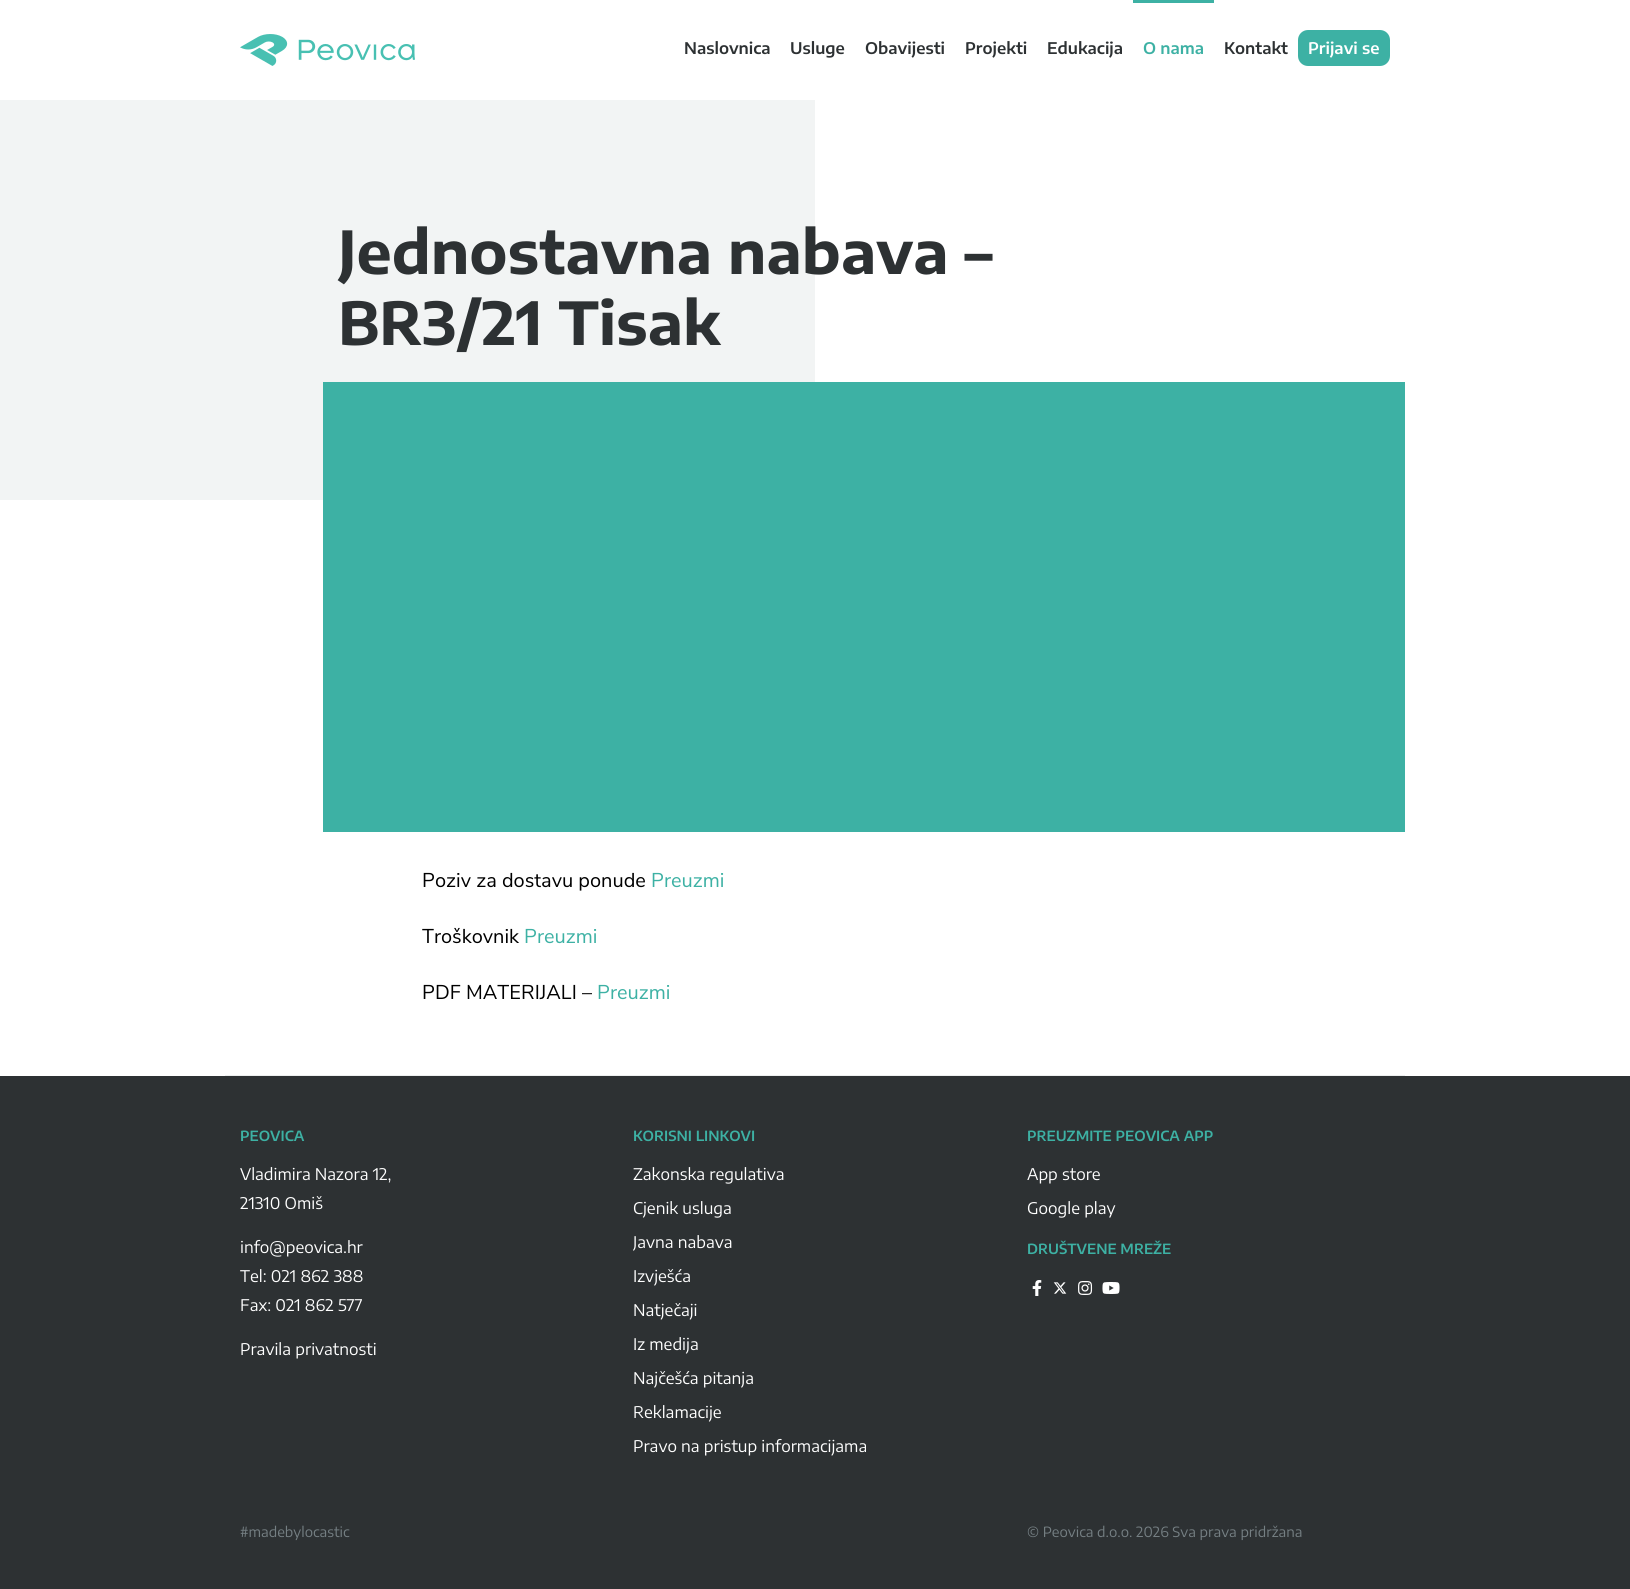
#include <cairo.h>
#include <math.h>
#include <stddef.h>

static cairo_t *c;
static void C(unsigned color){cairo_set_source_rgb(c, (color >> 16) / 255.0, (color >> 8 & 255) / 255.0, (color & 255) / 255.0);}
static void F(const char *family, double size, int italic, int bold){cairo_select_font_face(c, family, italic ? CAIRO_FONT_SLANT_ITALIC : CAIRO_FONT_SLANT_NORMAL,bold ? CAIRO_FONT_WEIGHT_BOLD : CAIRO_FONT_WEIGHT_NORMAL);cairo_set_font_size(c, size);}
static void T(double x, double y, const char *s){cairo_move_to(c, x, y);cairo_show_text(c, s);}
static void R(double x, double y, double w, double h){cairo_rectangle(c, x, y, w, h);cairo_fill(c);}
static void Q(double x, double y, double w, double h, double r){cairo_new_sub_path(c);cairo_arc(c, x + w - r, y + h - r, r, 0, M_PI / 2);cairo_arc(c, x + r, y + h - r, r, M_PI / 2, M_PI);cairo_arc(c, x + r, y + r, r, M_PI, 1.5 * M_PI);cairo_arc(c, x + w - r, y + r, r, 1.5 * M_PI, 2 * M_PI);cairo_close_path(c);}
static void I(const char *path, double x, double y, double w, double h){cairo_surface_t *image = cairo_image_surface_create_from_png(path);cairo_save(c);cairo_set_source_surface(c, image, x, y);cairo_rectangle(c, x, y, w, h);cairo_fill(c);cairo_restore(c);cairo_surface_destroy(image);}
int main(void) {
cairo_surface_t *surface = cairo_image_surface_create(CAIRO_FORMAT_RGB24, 1630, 1589);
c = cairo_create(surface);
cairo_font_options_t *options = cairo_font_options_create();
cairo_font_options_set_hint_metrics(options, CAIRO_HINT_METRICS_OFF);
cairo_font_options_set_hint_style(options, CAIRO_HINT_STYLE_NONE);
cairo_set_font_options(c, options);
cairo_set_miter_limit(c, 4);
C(0xffffff);
cairo_paint(c);
I("1.png",240,34,175,32);
F("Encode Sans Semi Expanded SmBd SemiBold",16,0,0);
C(0x2d3133);
T(684,54,"Naslovnica");
T(790,54,"Usluge");
T(865,54,"Obavijesti");
T(965,54,"Projekti");
T(1047,54,"Edukacija");
C(0x3db1a4);
R(1133,0,81,3);
T(1143,54,"O nama");
C(0x2d3133);
T(1224,54,"Kontakt");
C(0x3db1a4);
Q(1298,30,92,36,10);
cairo_fill(c);
C(0xffffff);
T(1308,54,"Prijavi se");
C(0xf2f4f4);
R(0,100,815,400);
F("Encode Sans Semi Expanded",59,0,1);
C(0x2d3133);
T(338,274,"Jednostavna nabava –");
T(338,345,"BR3/21 Tisak");
C(0x3db1a4);
R(323,382,1082,450);
F("Nunito Sans",20,0,0);
C(0x000000);
T(422,887,"Poziv za dostavu ponude");
C(0x3db1a4);
T(651,887,"Preuzmi");
C(0x000000);
T(422,943,"Troškovnik");
C(0x3db1a4);
T(524,943,"Preuzmi");
C(0x000000);
T(422,999,"PDF MATERIJALI –");
C(0x3db1a4);
T(597,999,"Preuzmi");
C(0xedefef);
R(225,1075,1180,1);
C(0x2d3133);
R(0,1076,1630,513);
F("Encode Sans Semi Expanded SmBd SemiBold",14,0,0);
C(0x3db1a4);
T(240,1141,"PEOVICA");
F("Encode Sans Semi Expanded",16,0,0);
C(0xffffff);
T(240,1180,"Vladimira Nazora 12,");
T(240,1209,"21310 Omiš");
T(240,1253,"info@peovica.hr");
T(240,1282,"Tel: 021 862 388");
T(240,1311,"Fax: 021 862 577");
T(240,1355,"Pravila privatnosti");
F("Encode Sans Semi Expanded SmBd SemiBold",14,0,0);
C(0x3db1a4);
T(633,1141,"KORISNI LINKOVI");
F("Encode Sans Semi Expanded",16,0,0);
C(0xffffff);
T(633,1180,"Zakonska regulativa");
T(633,1214,"Cjenik usluga");
T(633,1248,"Javna nabava");
T(633,1282,"Izvješća");
T(633,1316,"Natječaji");
T(633,1350,"Iz medija");
T(633,1384,"Najčešća pitanja");
T(633,1418,"Reklamacije");
T(633,1452,"Pravo na pristup informacijama");
F("Encode Sans Semi Expanded SmBd SemiBold",14,0,0);
C(0x3db1a4);
T(1027,1141,"PREUZMITE PEOVICA APP");
F("Encode Sans Semi Expanded",16,0,0);
C(0xffffff);
T(1027,1180,"App store");
T(1027,1214,"Google play");
F("Encode Sans Semi Expanded SmBd SemiBold",14,0,0);
C(0x3db1a4);
T(1027,1254,"DRUŠTVENE MREŽE");
I("2.png",1032,1280,10,16);
I("3.png",1053,1282,14,12);
I("4.png",1078,1281,15,14);
I("5.png",1102,1282,18,12);
F("Encode Sans Semi Expanded",14,0,0);
C(0x757f83);
T(240,1537,"#madebylocastic");
T(1027,1537,"© Peovica d.o.o. 2026 Sva prava pridržana");
cairo_surface_write_to_png(surface, "o.png");
cairo_font_options_destroy(options);
cairo_destroy(c);
cairo_surface_destroy(surface);
return 0;
}
